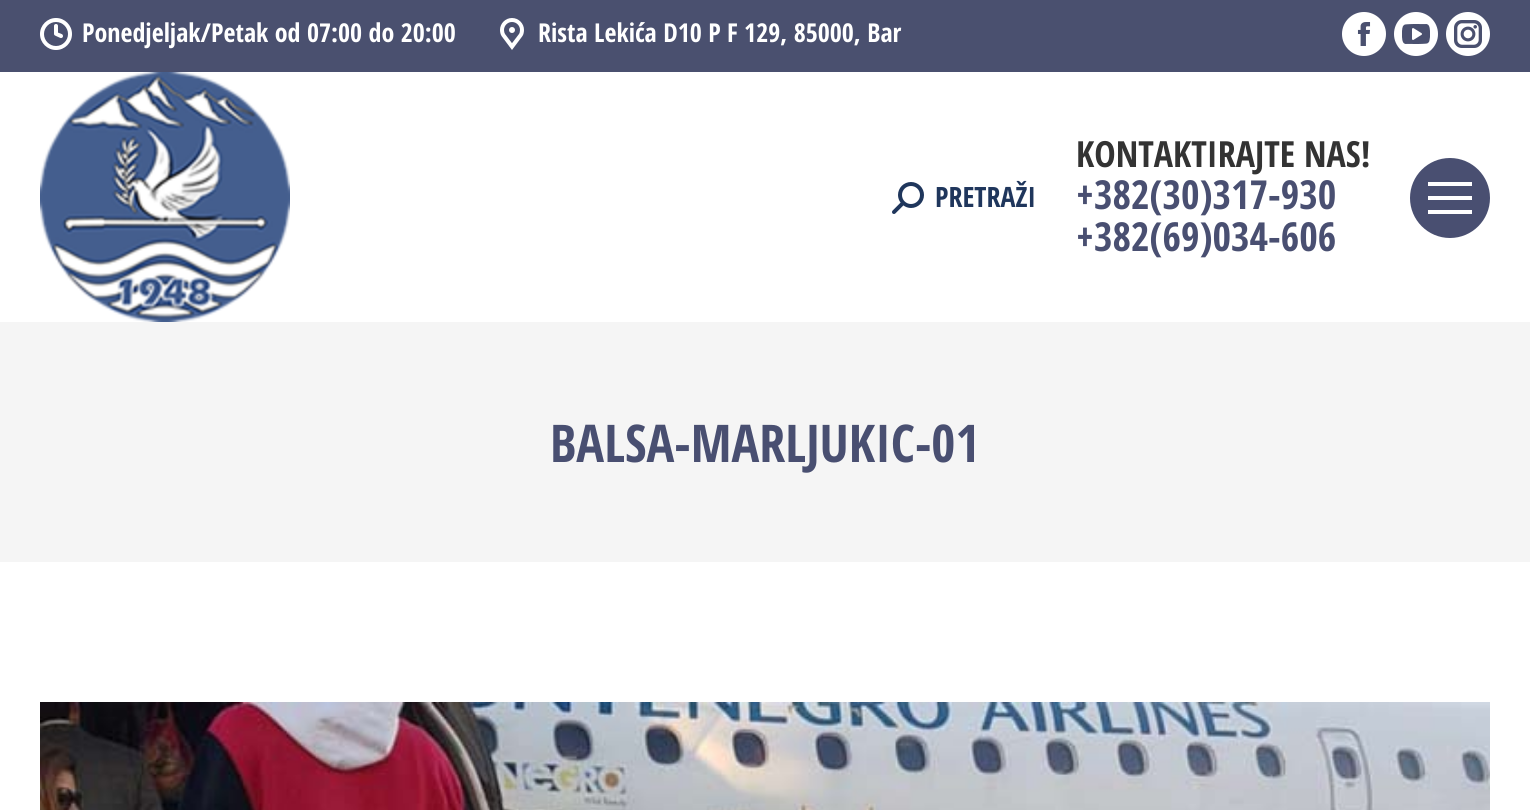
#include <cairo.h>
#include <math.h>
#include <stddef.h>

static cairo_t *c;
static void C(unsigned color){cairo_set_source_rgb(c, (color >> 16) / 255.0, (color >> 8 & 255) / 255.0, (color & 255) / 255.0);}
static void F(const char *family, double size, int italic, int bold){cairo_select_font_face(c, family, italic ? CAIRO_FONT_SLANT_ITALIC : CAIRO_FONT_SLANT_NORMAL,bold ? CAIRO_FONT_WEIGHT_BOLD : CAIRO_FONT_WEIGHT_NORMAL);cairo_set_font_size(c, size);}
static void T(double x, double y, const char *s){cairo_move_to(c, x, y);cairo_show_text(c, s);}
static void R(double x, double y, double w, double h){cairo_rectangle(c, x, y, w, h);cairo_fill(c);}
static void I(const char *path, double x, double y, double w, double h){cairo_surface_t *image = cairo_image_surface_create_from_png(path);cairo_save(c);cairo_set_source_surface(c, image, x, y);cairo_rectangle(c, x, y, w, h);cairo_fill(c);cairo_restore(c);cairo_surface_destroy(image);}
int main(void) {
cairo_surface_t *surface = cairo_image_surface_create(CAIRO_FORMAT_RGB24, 1530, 810);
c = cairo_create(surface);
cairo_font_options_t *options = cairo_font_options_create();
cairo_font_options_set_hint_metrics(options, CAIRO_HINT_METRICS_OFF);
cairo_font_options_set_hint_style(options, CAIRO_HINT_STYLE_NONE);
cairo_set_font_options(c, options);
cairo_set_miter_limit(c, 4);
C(0xffffff);
cairo_paint(c);
C(0x4a506f);
R(0,0,1530,72);
I("1.png",40,18,32,32);
F("Open Sans Condensed",26,0,1);
C(0xffffff);
T(82,42,"Ponedjeljak/Petak od 07:00 do 20:00");
I("2.png",500,18,24,32);
T(538,42,"Rista Lekića D10 P F 129, 85000, Bar");
cairo_new_path(c);
cairo_arc(c,1364,34,22,0,2 * M_PI);
cairo_fill(c);
I("3.png",1357,22,14,24);
cairo_arc(c,1416,34,22,0,2 * M_PI);
cairo_fill(c);
I("4.png",1402,24,28,20);
cairo_arc(c,1468,34,22,0,2 * M_PI);
cairo_fill(c);
I("5.png",1454,20,28,28);
I("6.png",40,72,250,250);
I("7.png",892,182,32,32);
F("Open Sans Condensed",28,0,1);
C(0x1f365c);
T(935,207,"PRETRAŽI");
F("Open Sans Condensed",36,0,1);
C(0x333333);
T(1076,167,"KONTAKTIRAJTE NAS!");
F("Open Sans Condensed",40,0,1);
C(0x494f71);
T(1076,209,"+382(30)317-930");
T(1076,251,"+382(69)034-606");
cairo_new_path(c);
cairo_arc(c,1450,198,40,0,2 * M_PI);
cairo_fill(c);
C(0xffffff);
R(1428,196,44,4);
R(1428,182,44,4);
R(1428,210,44,4);
C(0xf5f5f5);
R(0,322,1530,240);
F("Open Sans Condensed",52,0,1);
C(0x494f71);
T(550,462,"BALSA-MARLJUKIC-01");
I("8.png",40,702,1450,108);
cairo_surface_write_to_png(surface, "o.png");
cairo_font_options_destroy(options);
cairo_destroy(c);
cairo_surface_destroy(surface);
return 0;
}
